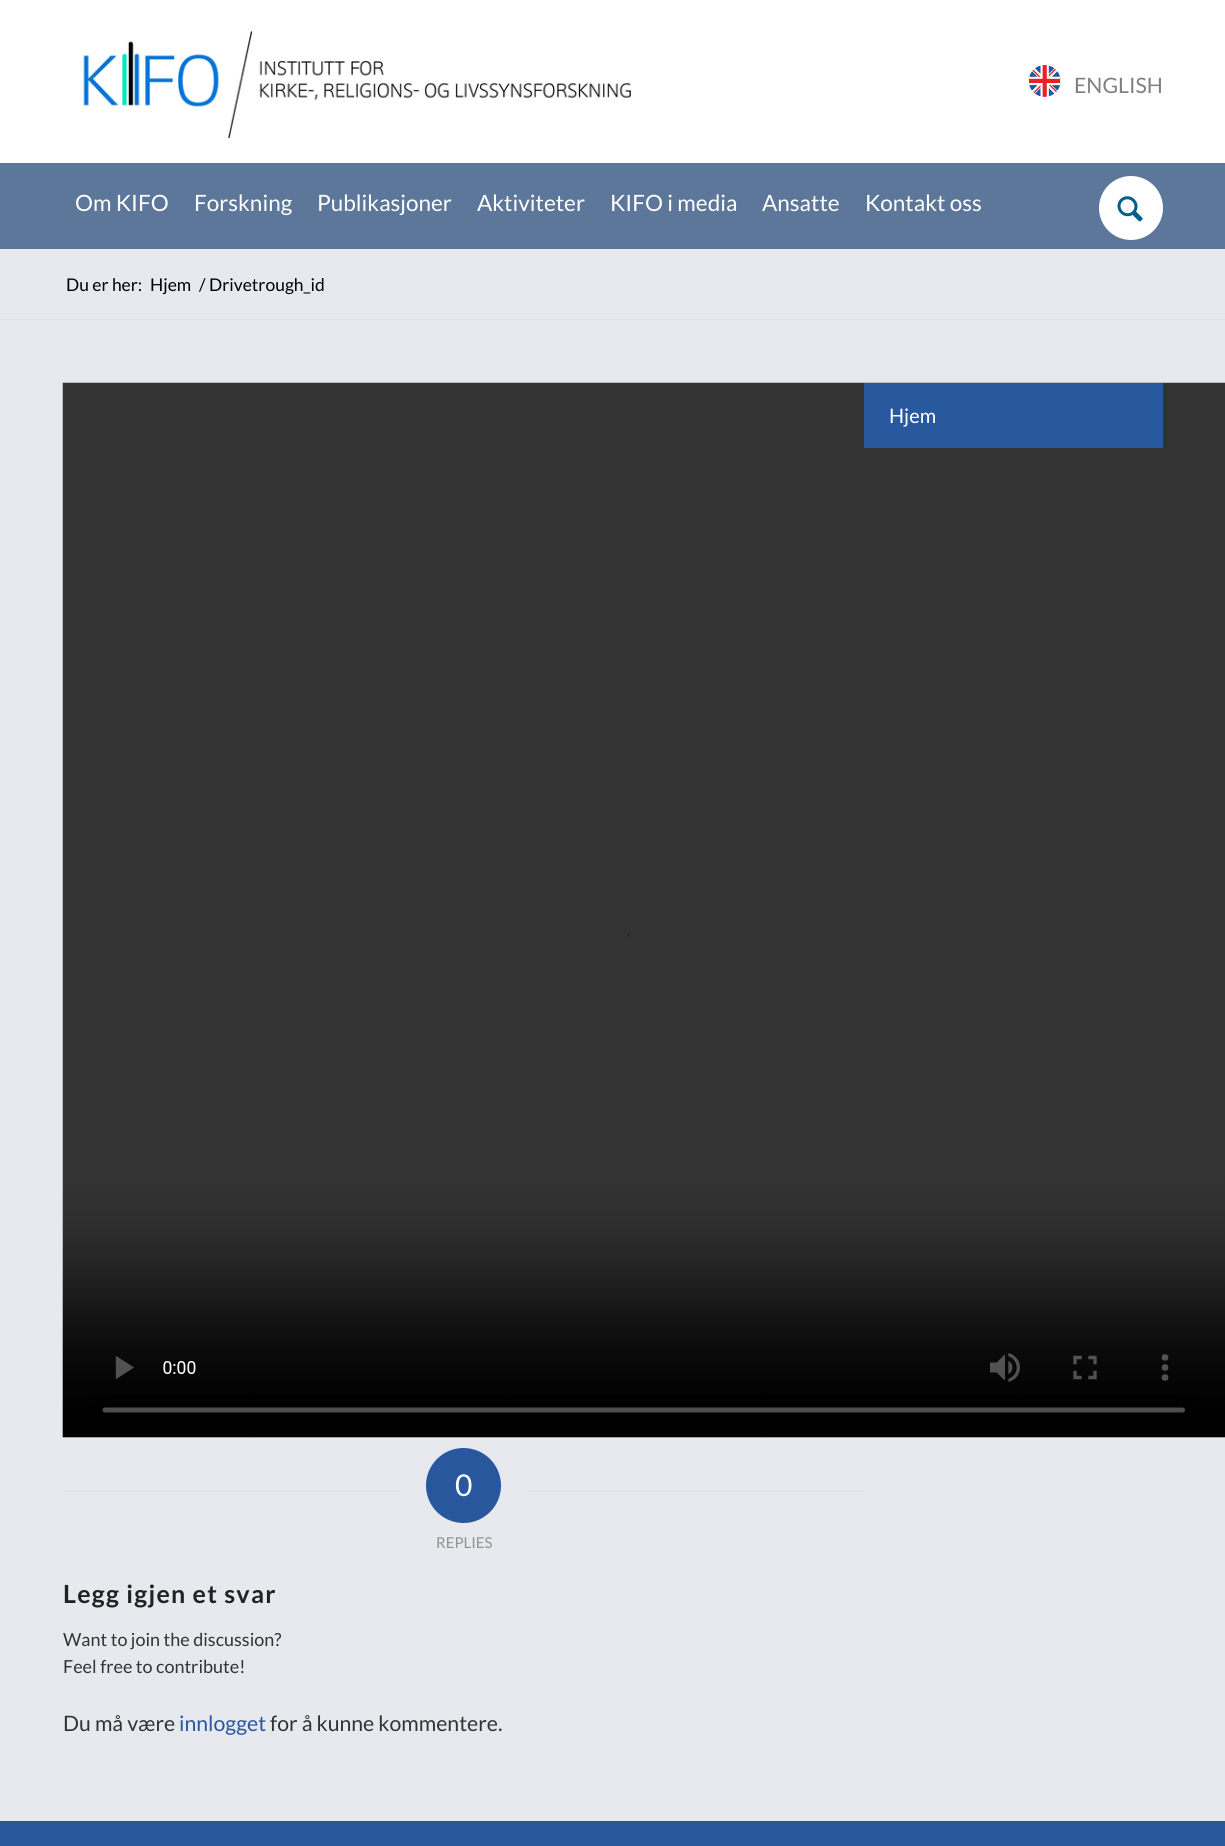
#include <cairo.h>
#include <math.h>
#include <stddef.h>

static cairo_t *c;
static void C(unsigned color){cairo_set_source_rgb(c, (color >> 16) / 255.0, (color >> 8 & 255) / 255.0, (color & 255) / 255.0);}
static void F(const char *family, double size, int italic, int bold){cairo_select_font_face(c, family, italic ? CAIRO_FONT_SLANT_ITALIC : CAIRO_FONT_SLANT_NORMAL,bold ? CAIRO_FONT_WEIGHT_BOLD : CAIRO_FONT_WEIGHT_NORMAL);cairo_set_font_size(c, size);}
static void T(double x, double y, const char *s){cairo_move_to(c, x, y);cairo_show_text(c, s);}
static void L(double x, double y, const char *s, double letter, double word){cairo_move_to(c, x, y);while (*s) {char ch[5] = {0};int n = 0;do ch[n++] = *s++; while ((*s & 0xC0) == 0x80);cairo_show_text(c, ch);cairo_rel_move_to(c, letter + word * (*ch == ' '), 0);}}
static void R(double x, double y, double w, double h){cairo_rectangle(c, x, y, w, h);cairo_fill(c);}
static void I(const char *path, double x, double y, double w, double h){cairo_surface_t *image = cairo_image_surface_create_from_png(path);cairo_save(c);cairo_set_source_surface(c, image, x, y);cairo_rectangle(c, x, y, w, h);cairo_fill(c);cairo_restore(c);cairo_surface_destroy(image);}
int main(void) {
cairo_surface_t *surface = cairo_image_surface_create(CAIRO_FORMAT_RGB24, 1225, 1846);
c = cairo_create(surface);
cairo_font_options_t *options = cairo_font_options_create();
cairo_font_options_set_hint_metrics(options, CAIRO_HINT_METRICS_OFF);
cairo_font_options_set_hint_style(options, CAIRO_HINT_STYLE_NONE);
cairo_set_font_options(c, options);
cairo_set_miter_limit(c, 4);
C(0xffffff);
cairo_paint(c);
I("1.png",83,31,548,108);
I("3.png",1028,77,33,9);
C(0xffffff);
R(1029,77,31,9);
I("2.png",1029,65,31,32);
F("Lato",21.25,0,0);
C(0x808080);
T(1074,93,"ENGLISH");
C(0x5d779b);
R(0,163,1225,86);
F("Lato",22.5,0,0);
C(0xffffff);
T(75,211,"Om KIFO");
T(194,211,"Forskning");
T(317,211,"Publikasjoner");
T(477,211,"Aktiviteter");
T(610,211,"KIFO i media");
T(762,211,"Ansatte");
T(865,211,"Kontakt oss");
cairo_new_path(c);
cairo_arc(c,1131,208,32,0,2 * M_PI);
cairo_fill(c);
I("4.png",1117,196,26,26);
C(0xe7e9ee);
R(0,249,1225,70);
F("Lato",17.5,0,0);
C(0x000000);
T(66,291,"Du er her:");
T(150,291,"Hjem");
T(199,291,"/");
T(209,291,"Drivetrough_id");
C(0xe7e9ee);
R(0,320,1225,1501);
C(0xe1e1e1);
R(0,319,1225,1);
I("5.png",62,382,1163,1056);
C(0x28589e);
R(864,383,299,65);
F("Lato",20,0,0);
C(0xffffff);
T(889,423,"Hjem");
C(0xe1e1e1);
R(63,1491,337,1);
C(0x28579e);
cairo_new_path(c);
cairo_arc(c,463.5,1485.5,37.5,0,2 * M_PI);
cairo_fill(c);
F("Lato",30,0,0);
C(0xffffff);
T(455,1496,"0");
C(0xe1e1e1);
R(529,1491,336,1);
F("Lato",15,0,0);
C(0x919191);
T(436,1548,"REPLIES");
F("Lato",25,0,1);
C(0x222222);
L(63,1603,"Legg igjen et svar",1.25,0);
F("Lato",18,0,0);
C(0x333333);
T(63,1646,"Want to join the discussion?");
T(63,1673,"Feel free to contribute!");
F("Lato",21.25,0,0);
T(63,1731,"Du må være");
C(0x28579e);
T(179,1731,"innlogget");
C(0x333333);
T(270,1731,"for å kunne kommentere.");
C(0x28579e);
R(0,1821,1225,25);
cairo_surface_write_to_png(surface, "o.png");
cairo_font_options_destroy(options);
cairo_destroy(c);
cairo_surface_destroy(surface);
return 0;
}
